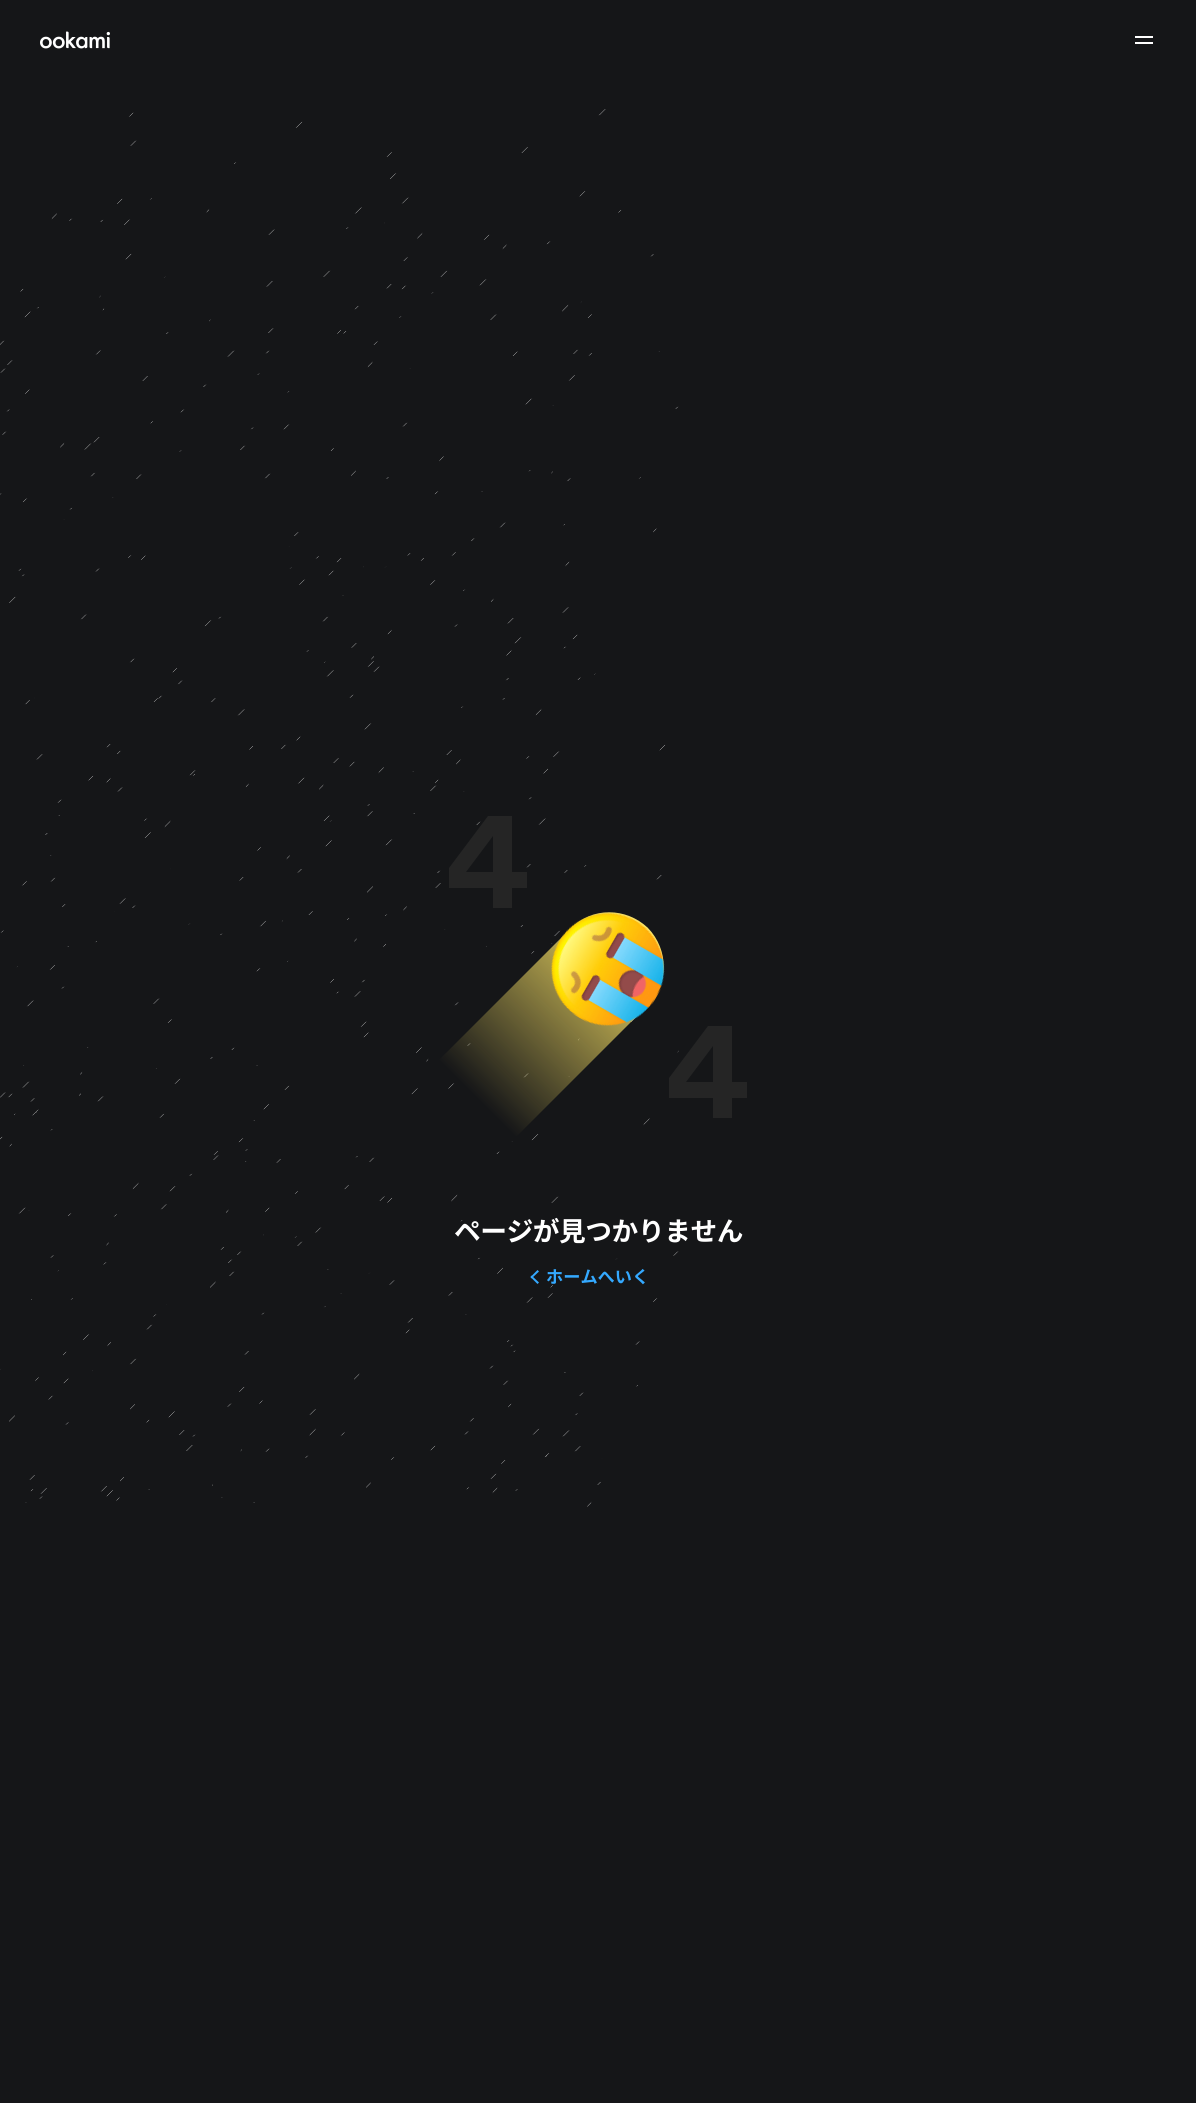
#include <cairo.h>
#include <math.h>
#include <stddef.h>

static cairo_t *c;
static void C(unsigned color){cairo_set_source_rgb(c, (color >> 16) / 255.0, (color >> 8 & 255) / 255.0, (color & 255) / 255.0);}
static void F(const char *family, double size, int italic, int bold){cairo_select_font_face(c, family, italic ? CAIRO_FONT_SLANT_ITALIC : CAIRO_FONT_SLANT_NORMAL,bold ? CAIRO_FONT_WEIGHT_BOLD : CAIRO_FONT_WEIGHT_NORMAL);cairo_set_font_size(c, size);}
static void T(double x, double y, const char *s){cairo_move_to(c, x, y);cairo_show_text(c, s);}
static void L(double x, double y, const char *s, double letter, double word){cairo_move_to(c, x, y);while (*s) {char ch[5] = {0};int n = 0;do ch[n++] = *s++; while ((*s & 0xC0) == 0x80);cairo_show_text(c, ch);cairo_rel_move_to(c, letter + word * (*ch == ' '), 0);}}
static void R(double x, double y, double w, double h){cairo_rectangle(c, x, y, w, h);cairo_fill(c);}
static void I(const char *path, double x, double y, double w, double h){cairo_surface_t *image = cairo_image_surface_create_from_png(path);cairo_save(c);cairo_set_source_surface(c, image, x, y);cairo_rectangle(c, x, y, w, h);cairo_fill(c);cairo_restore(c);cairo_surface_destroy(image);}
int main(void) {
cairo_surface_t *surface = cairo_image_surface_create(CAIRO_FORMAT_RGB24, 1196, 2103);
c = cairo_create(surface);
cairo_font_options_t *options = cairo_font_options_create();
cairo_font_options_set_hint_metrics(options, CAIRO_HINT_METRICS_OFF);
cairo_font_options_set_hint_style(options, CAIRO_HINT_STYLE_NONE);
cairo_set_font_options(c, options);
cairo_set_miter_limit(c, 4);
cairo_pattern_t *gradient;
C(0x151618);
cairo_paint(c);
I("1.png",40,31,70,18);
C(0xffffff);
R(1135,36,18,2);
R(1135,42,18,2);
I("2.png",0,109,679,1398);
C(0x252525);
cairo_set_fill_rule(c,CAIRO_FILL_RULE_EVEN_ODD);
cairo_new_path(c);
cairo_move_to(c,449,888);
cairo_line_to(c,449,868);
cairo_line_to(c,488,816);
cairo_line_to(c,512,816);
cairo_line_to(c,512,872);
cairo_line_to(c,527,872);
cairo_line_to(c,527,888);
cairo_line_to(c,512,888);
cairo_line_to(c,512,908);
cairo_line_to(c,493,908);
cairo_line_to(c,493,888);
cairo_close_path(c);
cairo_move_to(c,493,872);
cairo_line_to(c,493,836);
cairo_line_to(c,466,872);
cairo_close_path(c);
cairo_fill(c);
gradient = cairo_pattern_create_linear(404,1172,648,928);
cairo_pattern_add_color_stop_rgba(gradient,.3,0.988,0.894,0.4,0);
cairo_pattern_add_color_stop_rgba(gradient,1,0.988,0.894,0.4,1);
cairo_set_source(c,gradient);
cairo_pattern_destroy(gradient);
cairo_set_fill_rule(c,CAIRO_FILL_RULE_WINDING);
cairo_new_path(c);
cairo_move_to(c,366,1133);
cairo_line_to(c,571,928);
cairo_curve_to(c,592,907,626,907,648,928);
cairo_curve_to(c,669,950,669,984,648,1005);
cairo_line_to(c,443,1210);
cairo_close_path(c);
cairo_fill(c);
I("3.png",551,912,114,114);
C(0x252525);
cairo_set_fill_rule(c,CAIRO_FILL_RULE_EVEN_ODD);
cairo_new_path(c);
cairo_move_to(c,669,1098);
cairo_line_to(c,669,1078);
cairo_line_to(c,708,1026);
cairo_line_to(c,732,1026);
cairo_line_to(c,732,1082);
cairo_line_to(c,747,1082);
cairo_line_to(c,747,1098);
cairo_line_to(c,732,1098);
cairo_line_to(c,732,1118);
cairo_line_to(c,713,1118);
cairo_line_to(c,713,1098);
cairo_close_path(c);
cairo_move_to(c,713,1082);
cairo_line_to(c,713,1046);
cairo_line_to(c,686,1082);
cairo_close_path(c);
cairo_fill(c);
F("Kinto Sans",28,0,1);
C(0xffffff);
L(454,1241,"ページが見つかりません",-.5,0);
C(0x34a9ff);
cairo_set_fill_rule(c,CAIRO_FILL_RULE_WINDING);
cairo_new_path(c);
cairo_move_to(c,539,1282.5);
cairo_line_to(c,537.5,1284);
cairo_line_to(c,530.5,1277);
cairo_line_to(c,531.5,1275.5);
cairo_close_path(c);
cairo_fill(c);
cairo_new_path(c);
cairo_move_to(c,539,1271.5);
cairo_line_to(c,531.5,1278.5);
cairo_line_to(c,530.5,1277);
cairo_line_to(c,537.5,1270);
cairo_close_path(c);
cairo_fill(c);
F("Kinto Sans",18,0,1);
T(546,1283,"ホームへいく");
cairo_surface_write_to_png(surface, "o.png");
cairo_font_options_destroy(options);
cairo_destroy(c);
cairo_surface_destroy(surface);
return 0;
}
